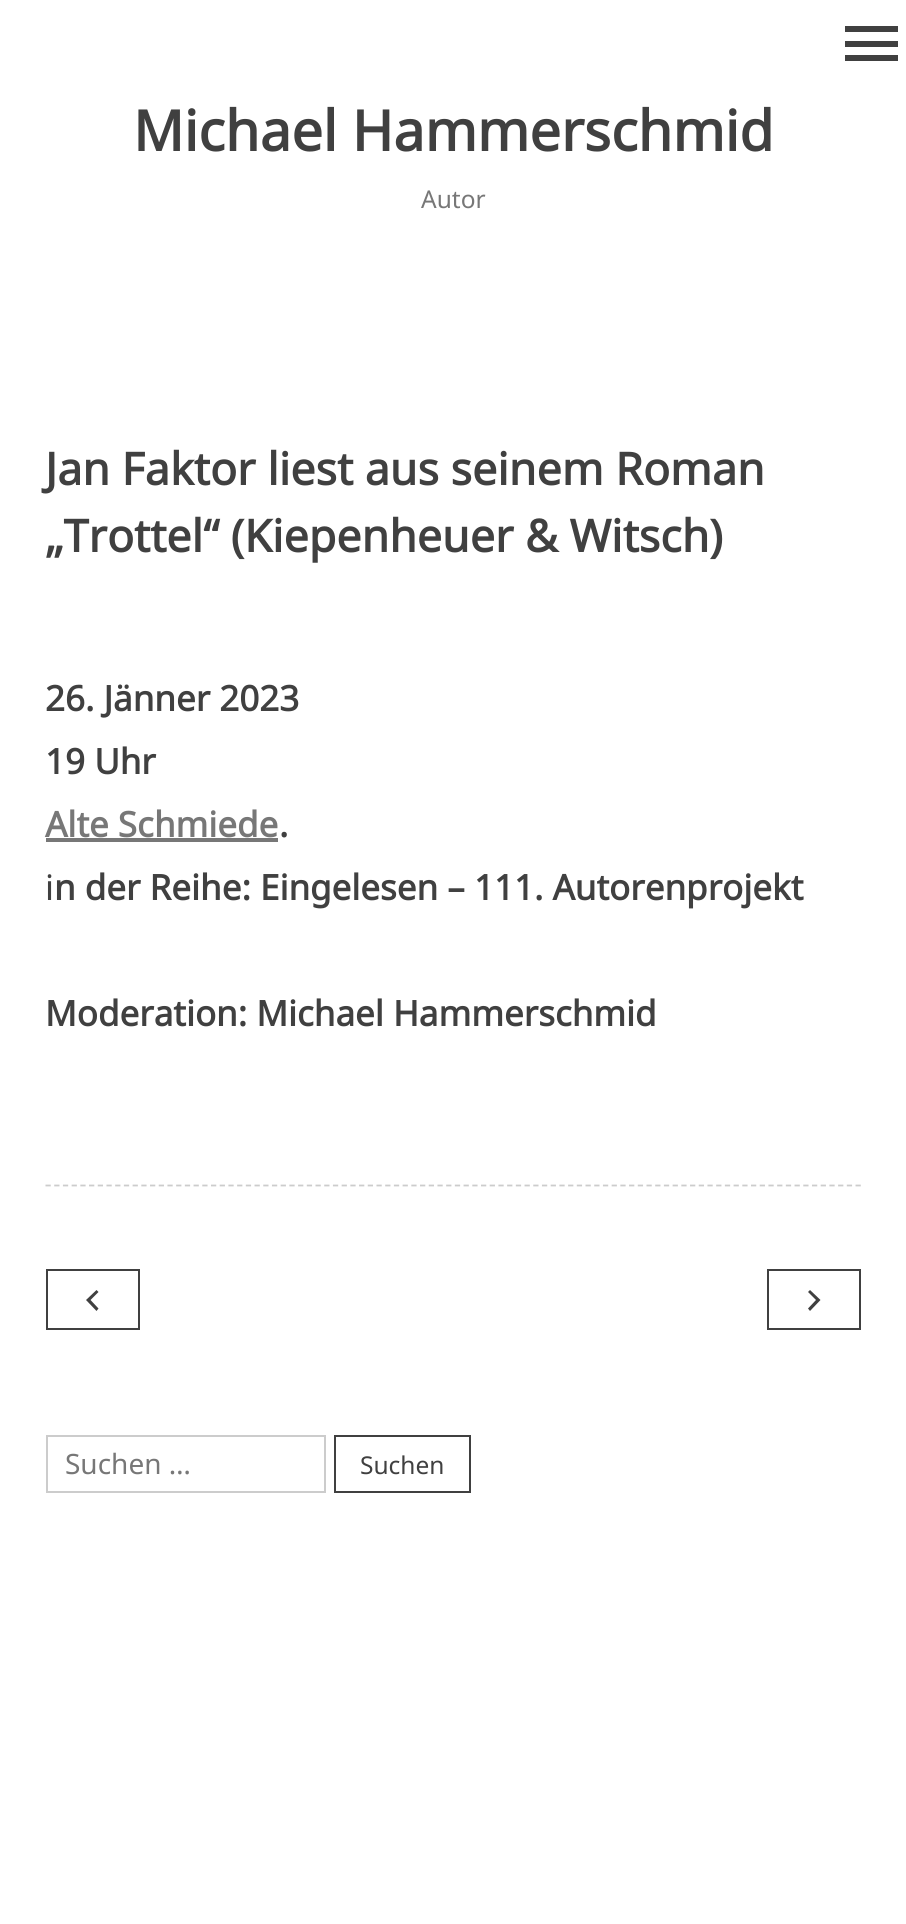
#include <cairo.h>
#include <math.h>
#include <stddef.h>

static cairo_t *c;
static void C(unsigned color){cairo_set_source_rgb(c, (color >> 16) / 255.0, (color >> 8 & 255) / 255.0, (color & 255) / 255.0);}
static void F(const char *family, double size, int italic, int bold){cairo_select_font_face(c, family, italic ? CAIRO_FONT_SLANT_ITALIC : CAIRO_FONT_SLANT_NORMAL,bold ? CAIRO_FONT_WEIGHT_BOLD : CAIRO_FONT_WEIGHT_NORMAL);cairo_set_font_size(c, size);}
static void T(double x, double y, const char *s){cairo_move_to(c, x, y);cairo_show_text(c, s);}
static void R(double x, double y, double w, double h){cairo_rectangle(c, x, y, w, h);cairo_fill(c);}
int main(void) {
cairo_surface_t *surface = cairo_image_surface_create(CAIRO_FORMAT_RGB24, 906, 1924);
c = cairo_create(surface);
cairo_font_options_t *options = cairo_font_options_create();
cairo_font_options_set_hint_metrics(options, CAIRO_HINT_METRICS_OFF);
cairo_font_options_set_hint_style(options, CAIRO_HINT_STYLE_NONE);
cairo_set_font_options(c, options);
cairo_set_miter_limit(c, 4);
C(0xffffff);
cairo_paint(c);
C(0x404040);
cairo_new_path(c);
cairo_move_to(c,845,26);
cairo_line_to(c,898,26);
cairo_line_to(c,898,32);
cairo_line_to(c,845,32);
cairo_close_path(c);
cairo_move_to(c,845,47);
cairo_line_to(c,845,41);
cairo_line_to(c,898,41);
cairo_line_to(c,898,47);
cairo_close_path(c);
cairo_move_to(c,845,61);
cairo_line_to(c,845,55);
cairo_line_to(c,898,55);
cairo_line_to(c,898,61);
cairo_close_path(c);
cairo_fill(c);
F("Noto Sans",56,0,1);
T(133,151,"Michael Hammerschmid");
F("Noto Sans",24.5,0,0);
C(0x777777);
T(421,208,"Autor");
F("Noto Sans",44.75,0,1);
C(0x404040);
T(45,485,"Jan Faktor liest aus seinem Roman");
T(45,552,"„Trottel“ (Kiepenheuer & Witsch)");
F("Noto Sans",35,0,1);
T(45,711,"26. Jänner 2023");
T(45,774,"19 Uhr");
C(0x777777);
T(45,837,"Alte Schmiede");
C(0x404040);
T(279,837,".");
C(0x777777);
R(46,838,232,4);
F("Noto Sans",35,0,0);
C(0x404040);
T(45,900,"i");
F("Noto Sans",35,0,1);
T(54,900,"n der Reihe: Eingelesen – 111. Autorenprojekt");
T(45,1026,"Moderation: Michael Hammerschmid");
cairo_new_path(c);
cairo_move_to(c,45.5,1185.5);
cairo_line_to(c,861,1185.5);
C(0xcccccc);
cairo_set_line_width(c,1.8);
cairo_set_dash(c,(double[]){5.25,3.46},2,0);
cairo_stroke(c);
cairo_rectangle(c,47,1270,92,59);
C(0x404040);
cairo_set_line_width(c,2);
cairo_set_dash(c,NULL,0,0);
cairo_stroke(c);
cairo_new_path(c);
cairo_move_to(c,98.5,1292);
cairo_line_to(c,90.5,1300);
cairo_line_to(c,98.5,1308.5);
cairo_line_to(c,96.5,1311);
cairo_line_to(c,86,1300);
cairo_line_to(c,96.5,1290);
cairo_close_path(c);
cairo_fill(c);
cairo_rectangle(c,768,1270,92,59);
cairo_stroke(c);
cairo_new_path(c);
cairo_move_to(c,810,1290);
cairo_line_to(c,820.5,1300);
cairo_line_to(c,810,1311);
cairo_line_to(c,808,1308.5);
cairo_line_to(c,816,1300);
cairo_line_to(c,808,1292);
cairo_close_path(c);
cairo_fill(c);
cairo_rectangle(c,47,1436,278,56);
C(0xcccccc);
cairo_stroke(c);
F("Noto Sans",28,0,0);
C(0x777777);
T(65,1474,"Suchen …");
cairo_rectangle(c,335,1436,135,56);
C(0x404040);
cairo_stroke(c);
F("Noto Sans",24.5,0,0);
T(360,1474,"Suchen");
cairo_surface_write_to_png(surface, "o.png");
cairo_font_options_destroy(options);
cairo_destroy(c);
cairo_surface_destroy(surface);
return 0;
}
